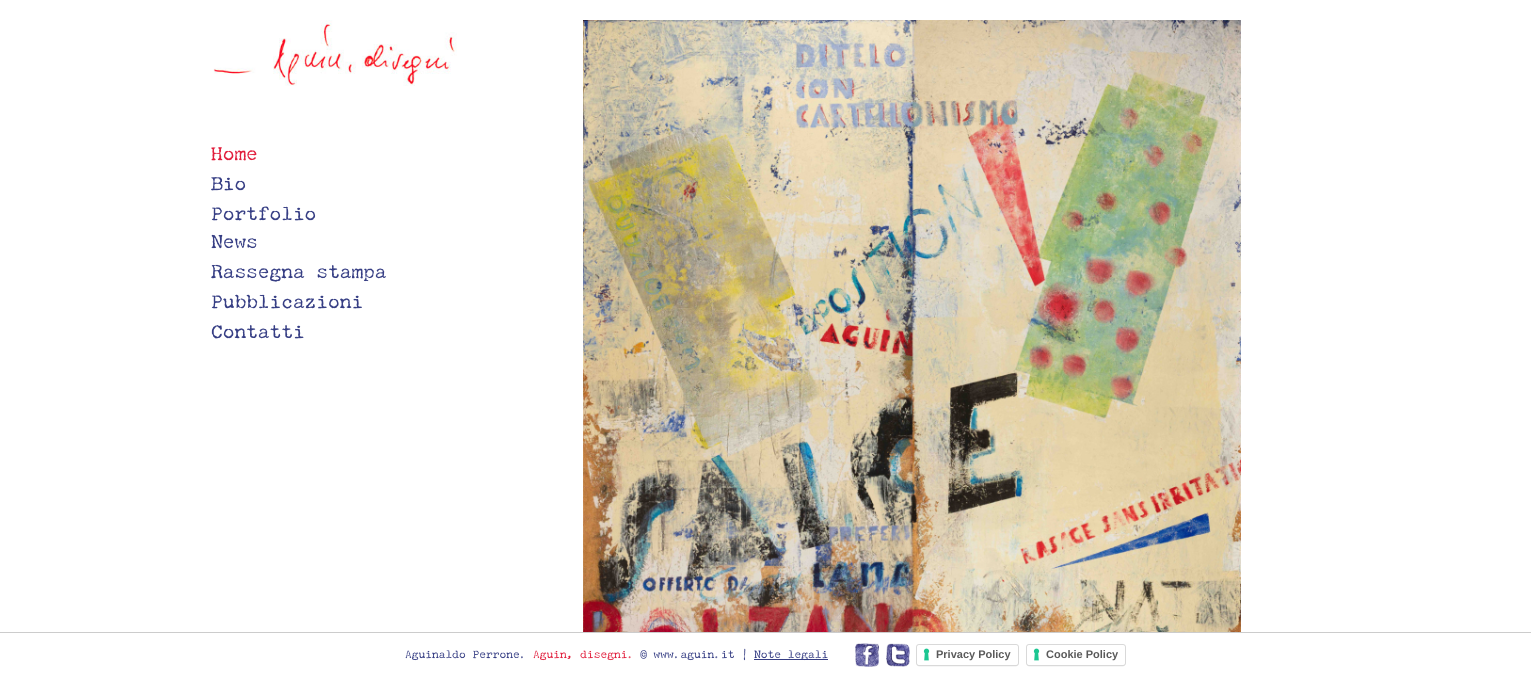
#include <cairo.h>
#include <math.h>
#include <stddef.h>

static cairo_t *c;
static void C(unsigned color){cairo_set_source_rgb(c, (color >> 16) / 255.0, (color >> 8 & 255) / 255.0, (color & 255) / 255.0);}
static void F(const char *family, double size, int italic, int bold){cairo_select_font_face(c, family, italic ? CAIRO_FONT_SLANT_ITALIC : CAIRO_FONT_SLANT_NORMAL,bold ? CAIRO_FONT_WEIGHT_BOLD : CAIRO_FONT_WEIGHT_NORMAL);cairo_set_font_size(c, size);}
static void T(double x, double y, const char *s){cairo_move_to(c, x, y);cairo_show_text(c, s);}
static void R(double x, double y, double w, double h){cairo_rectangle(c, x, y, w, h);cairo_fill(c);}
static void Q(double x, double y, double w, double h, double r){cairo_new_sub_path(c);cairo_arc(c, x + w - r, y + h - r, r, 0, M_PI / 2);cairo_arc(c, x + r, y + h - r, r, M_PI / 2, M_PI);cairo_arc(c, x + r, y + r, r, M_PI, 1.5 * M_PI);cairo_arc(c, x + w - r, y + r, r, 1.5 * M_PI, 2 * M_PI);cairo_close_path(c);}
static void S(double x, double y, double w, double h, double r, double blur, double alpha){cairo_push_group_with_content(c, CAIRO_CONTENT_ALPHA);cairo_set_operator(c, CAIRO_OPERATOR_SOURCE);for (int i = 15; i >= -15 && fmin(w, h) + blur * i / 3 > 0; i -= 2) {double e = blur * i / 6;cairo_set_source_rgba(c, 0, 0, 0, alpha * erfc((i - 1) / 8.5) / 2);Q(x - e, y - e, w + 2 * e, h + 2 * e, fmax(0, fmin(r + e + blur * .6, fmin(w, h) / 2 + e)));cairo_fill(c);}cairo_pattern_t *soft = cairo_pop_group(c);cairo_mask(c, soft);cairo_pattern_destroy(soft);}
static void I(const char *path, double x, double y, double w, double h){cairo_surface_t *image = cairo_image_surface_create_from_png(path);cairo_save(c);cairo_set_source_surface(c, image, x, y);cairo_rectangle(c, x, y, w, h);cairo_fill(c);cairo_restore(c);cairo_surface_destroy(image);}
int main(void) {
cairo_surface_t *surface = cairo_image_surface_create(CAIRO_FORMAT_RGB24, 1531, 687);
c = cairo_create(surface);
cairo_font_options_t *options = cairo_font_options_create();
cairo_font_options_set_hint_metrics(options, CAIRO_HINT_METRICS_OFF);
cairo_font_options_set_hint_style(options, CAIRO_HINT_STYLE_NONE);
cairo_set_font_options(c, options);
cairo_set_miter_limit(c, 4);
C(0xffffff);
cairo_paint(c);
I("1.png",213,20,244,66);
F("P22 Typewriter",19.5,0,0);
C(0xe11e3c);
T(211,160,"Home");
C(0x363e84);
T(211,190,"Bio");
T(211,220,"Portfolio");
T(211,248,"News");
T(211,278,"Rassegna stampa");
T(211,308,"Pubblicazioni");
T(211,338,"Contatti");
I("2.png",583,20,658,612);
C(0xcccccc);
R(0,632,1531,1);
F("P22 Typewriter",11.25,0,0);
C(0x363e84);
T(405,658,"Aguinaldo Perrone.");
C(0xe11e3c);
T(533,658,"Aguin, disegni.");
C(0x363e84);
T(640,658,"© www.aguin.it |");
R(754,659,74,1);
T(754,658,"Note legali");
I("3.png",855,643,24,24);
I("4.png",886,643,24,24);
C(0x000000);
S(917,646,101,20,2,.5,.15);
C(0xffffff);
Q(916,644,103,22,3);
cairo_fill(c);
I("5.png",923,648,7,13);
Q(916.5,644.5,102,21,2.5);
cairo_set_source_rgba(c,0,0,0,0.15);
cairo_set_line_width(c,1);
cairo_stroke(c);
F("Liberation Sans",11,0,1);
C(0x595959);
T(936,658,"Privacy Policy");
C(0x000000);
S(1027,646,98,20,2,.5,.15);
C(0xffffff);
Q(1026,644,100,22,3);
cairo_fill(c);
I("5.png",1033,648,7,13);
Q(1026.5,644.5,99,21,2.5);
cairo_set_source_rgba(c,0,0,0,0.15);
cairo_stroke(c);
C(0x595959);
T(1046,658,"Cookie Policy");
cairo_surface_write_to_png(surface, "o.png");
cairo_font_options_destroy(options);
cairo_destroy(c);
cairo_surface_destroy(surface);
return 0;
}
